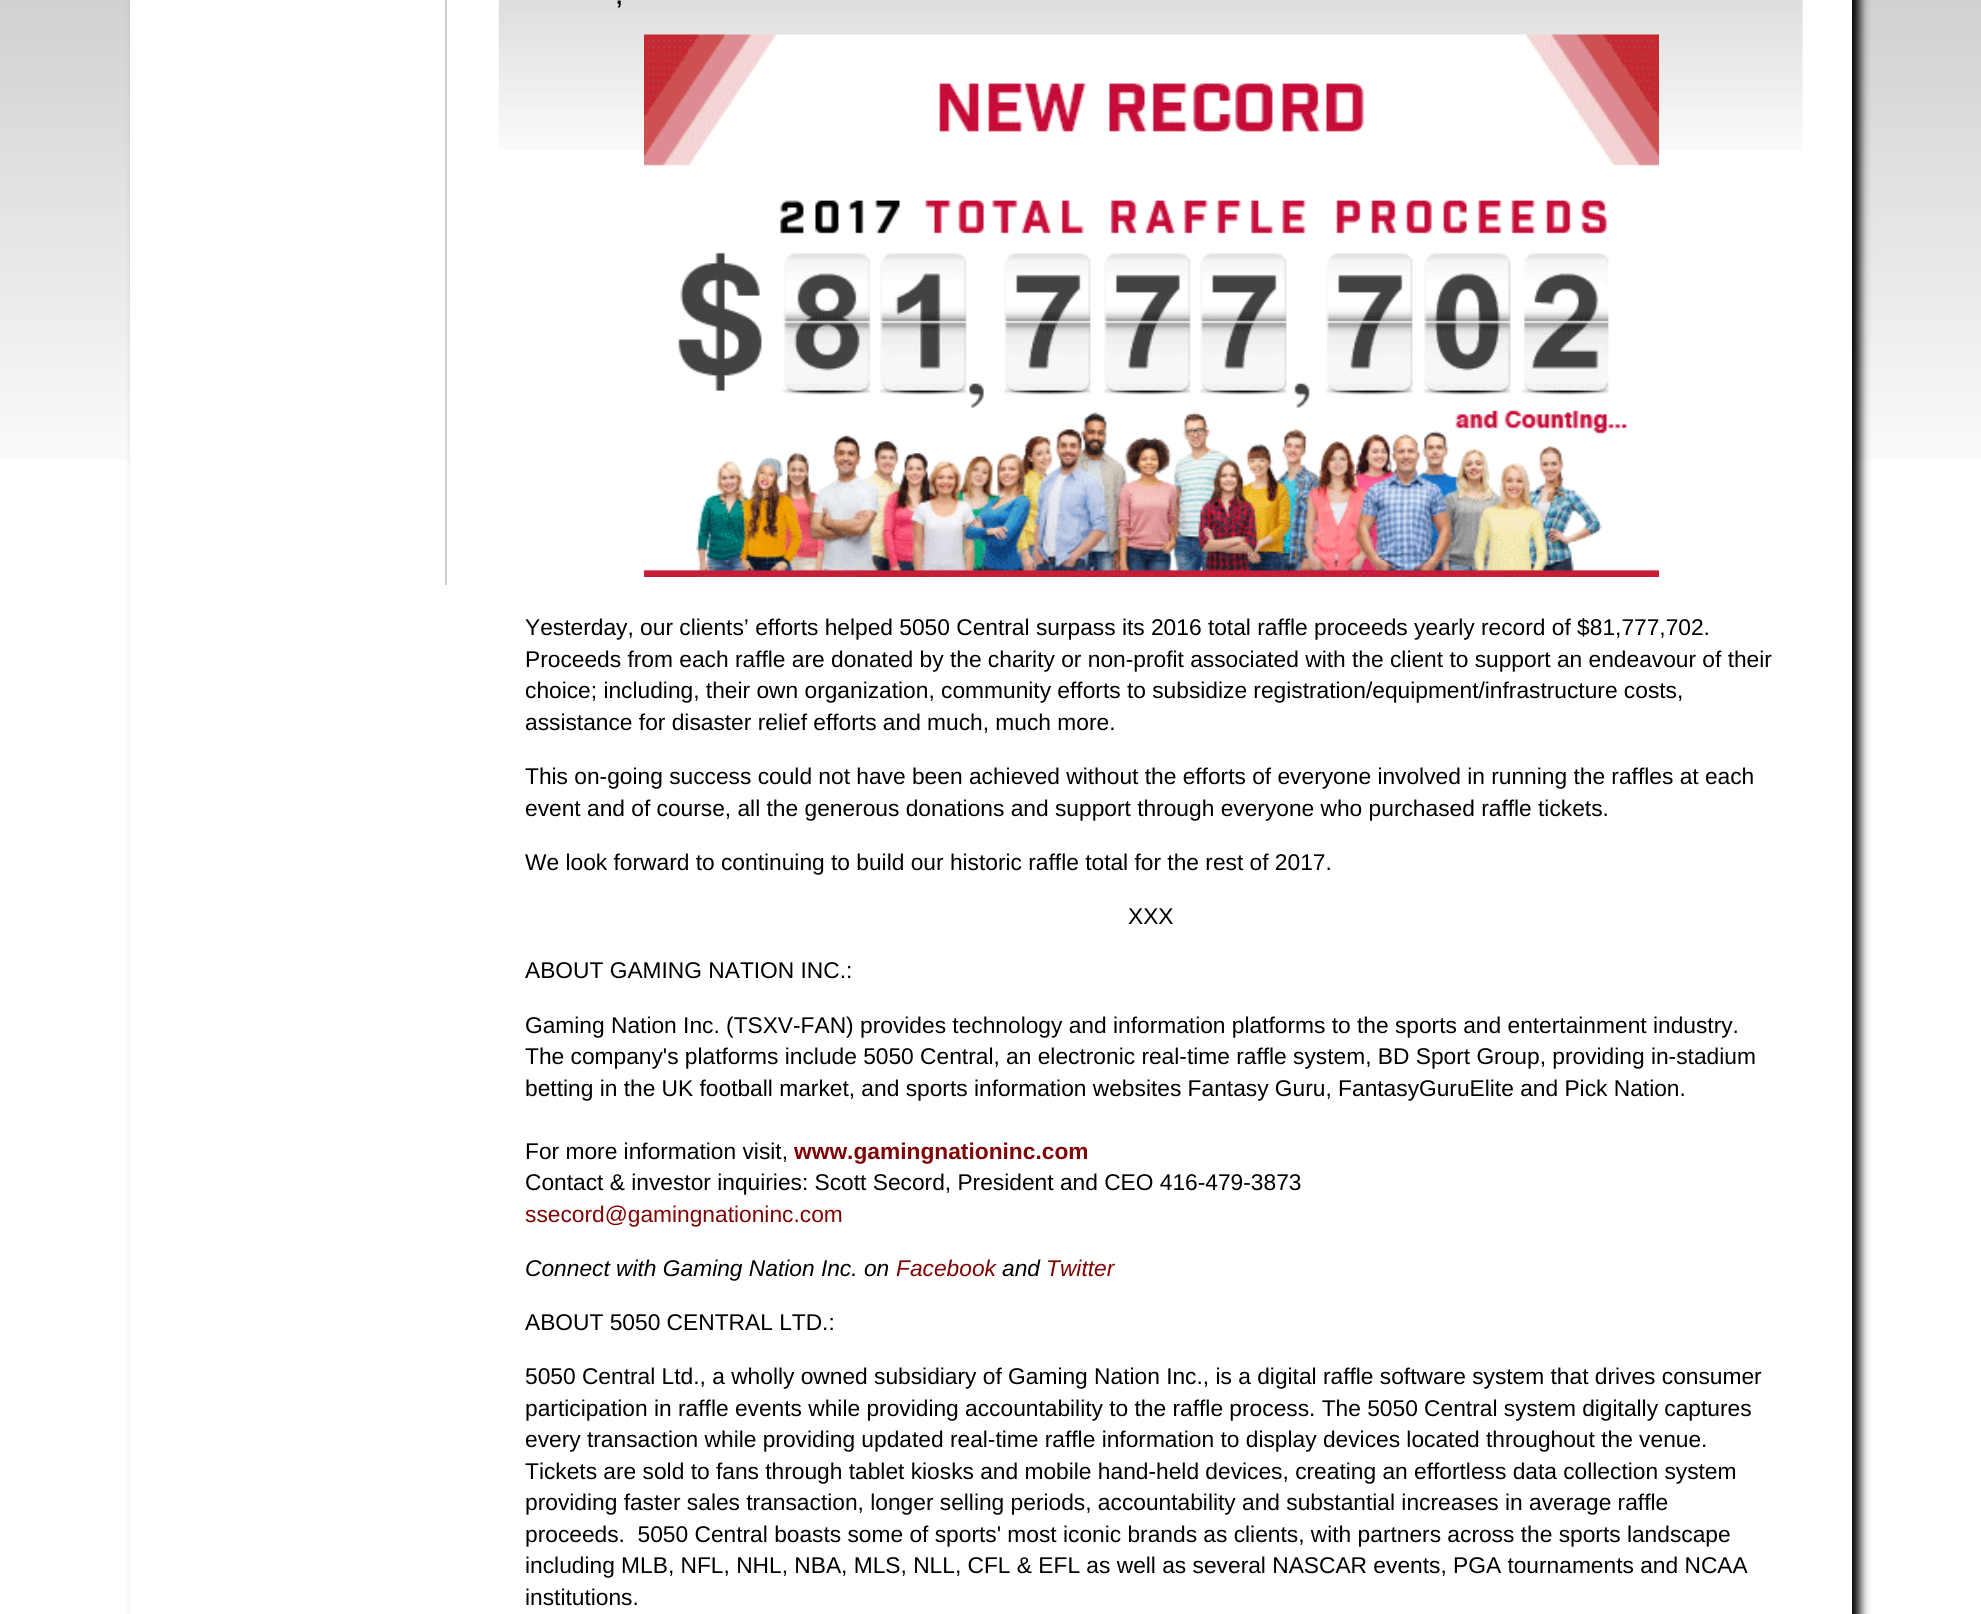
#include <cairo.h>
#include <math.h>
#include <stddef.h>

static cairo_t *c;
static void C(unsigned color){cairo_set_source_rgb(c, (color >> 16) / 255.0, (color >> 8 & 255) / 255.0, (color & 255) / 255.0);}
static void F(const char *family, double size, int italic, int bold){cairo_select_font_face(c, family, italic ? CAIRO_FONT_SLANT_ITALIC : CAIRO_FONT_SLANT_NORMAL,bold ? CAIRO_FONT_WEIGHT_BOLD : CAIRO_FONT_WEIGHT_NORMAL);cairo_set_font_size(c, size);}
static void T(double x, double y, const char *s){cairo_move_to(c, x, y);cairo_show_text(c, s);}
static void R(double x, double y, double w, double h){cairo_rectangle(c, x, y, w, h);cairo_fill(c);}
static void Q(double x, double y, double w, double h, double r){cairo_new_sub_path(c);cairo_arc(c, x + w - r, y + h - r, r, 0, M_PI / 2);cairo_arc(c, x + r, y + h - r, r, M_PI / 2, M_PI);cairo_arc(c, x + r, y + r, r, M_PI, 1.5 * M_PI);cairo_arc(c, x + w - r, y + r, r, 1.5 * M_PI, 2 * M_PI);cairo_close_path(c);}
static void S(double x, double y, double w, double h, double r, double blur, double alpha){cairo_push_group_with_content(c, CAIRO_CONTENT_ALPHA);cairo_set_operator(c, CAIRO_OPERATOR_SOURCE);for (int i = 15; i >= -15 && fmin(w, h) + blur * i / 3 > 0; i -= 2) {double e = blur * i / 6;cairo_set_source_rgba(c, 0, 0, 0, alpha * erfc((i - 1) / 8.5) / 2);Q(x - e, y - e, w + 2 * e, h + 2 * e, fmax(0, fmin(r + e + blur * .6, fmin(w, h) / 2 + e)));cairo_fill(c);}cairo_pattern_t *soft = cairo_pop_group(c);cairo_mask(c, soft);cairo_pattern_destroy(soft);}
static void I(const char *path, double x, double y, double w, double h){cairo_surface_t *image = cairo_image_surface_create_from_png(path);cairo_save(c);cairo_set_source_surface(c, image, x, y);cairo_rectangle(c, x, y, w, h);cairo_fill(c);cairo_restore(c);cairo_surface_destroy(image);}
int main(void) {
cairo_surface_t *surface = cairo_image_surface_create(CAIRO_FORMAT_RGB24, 1981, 1614);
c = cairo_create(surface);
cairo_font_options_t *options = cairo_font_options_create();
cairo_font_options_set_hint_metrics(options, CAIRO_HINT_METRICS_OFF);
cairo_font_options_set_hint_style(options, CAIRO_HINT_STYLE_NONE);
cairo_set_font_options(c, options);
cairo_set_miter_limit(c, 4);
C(0xffffff);
cairo_paint(c);
I("1.png",0,0,1981,460);
C(0x000000);
S(138,-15,1722,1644,0,5,1);
C(0xffffff);
R(130,0,1722,1614);
C(0xcccccc);
R(445,0,2,585);
I("2.png",498,0,1305,150);
F("Liberation Sans",22.75,0,1);
C(0x000000);
T(616,4,",");
I("3.png",644,34,1015,543);
F("Liberation Sans",22.75,0,0);
T(525,635,"Yesterday, our clients’ efforts helped 5050 Central surpass its 2016 total raffle proceeds yearly record of $81,777,702.");
T(525,667,"Proceeds from each raffle are donated by the charity or non-profit associated with the client to support an endeavour of their");
T(525,698,"choice; including, their own organization, community efforts to subsidize registration/equipment/infrastructure costs,");
T(525,730,"assistance for disaster relief efforts and much, much more.");
T(525,784,"This on-going success could not have been achieved without the efforts of everyone involved in running the raffles at each");
T(525,816,"event and of course, all the generous donations and support through everyone who purchased raffle tickets.");
T(525,870,"We look forward to continuing to build our historic raffle total for the rest of 2017.");
T(1128,924,"XXX");
T(525,978,"ABOUT GAMING NATION INC.:");
T(525,1033,"Gaming Nation Inc. (TSXV-FAN) provides technology and information platforms to the sports and entertainment industry.");
T(525,1064,"The company's platforms include 5050 Central, an electronic real-time raffle system, BD Sport Group, providing in-stadium");
T(525,1096,"betting in the UK football market, and sports information websites Fantasy Guru, FantasyGuruElite and Pick Nation.");
T(525,1159,"For more information visit,");
F("Liberation Sans",22.75,0,1);
C(0x810303);
T(794,1159,"www.gamingnationinc.com");
F("Liberation Sans",22.75,0,0);
C(0x000000);
T(525,1190,"Contact & investor inquiries: Scott Secord, President and CEO 416‐479‐3873");
C(0x810303);
T(525,1222,"ssecord@gamingnationinc.com");
F("Liberation Sans",22.75,1,0);
C(0x000000);
T(525,1276,"Connect with Gaming Nation Inc. on");
C(0x810303);
T(896,1276,"Facebook");
C(0x000000);
T(1002,1276,"and");
C(0x810303);
T(1046,1276,"Twitter");
F("Liberation Sans",22.75,0,0);
C(0x000000);
T(525,1330,"ABOUT 5050 CENTRAL LTD.:");
T(525,1384,"5050 Central Ltd., a wholly owned subsidiary of Gaming Nation Inc., is a digital raffle software system that drives consumer");
T(525,1416,"participation in raffle events while providing accountability to the raffle process. The 5050 Central system digitally captures");
T(525,1447,"every transaction while providing updated real-time raffle information to display devices located throughout the venue.");
T(525,1479,"Tickets are sold to fans through tablet kiosks and mobile hand-held devices, creating an effortless data collection system");
T(525,1510,"providing faster sales transaction, longer selling periods, accountability and substantial increases in average raffle");
T(525,1542,"proceeds.  5050 Central boasts some of sports' most iconic brands as clients, with partners across the sports landscape");
T(525,1573,"including MLB, NFL, NHL, NBA, MLS, NLL, CFL & EFL as well as several NASCAR events, PGA tournaments and NCAA");
T(525,1605,"institutions.");
cairo_surface_write_to_png(surface, "o.png");
cairo_font_options_destroy(options);
cairo_destroy(c);
cairo_surface_destroy(surface);
return 0;
}
